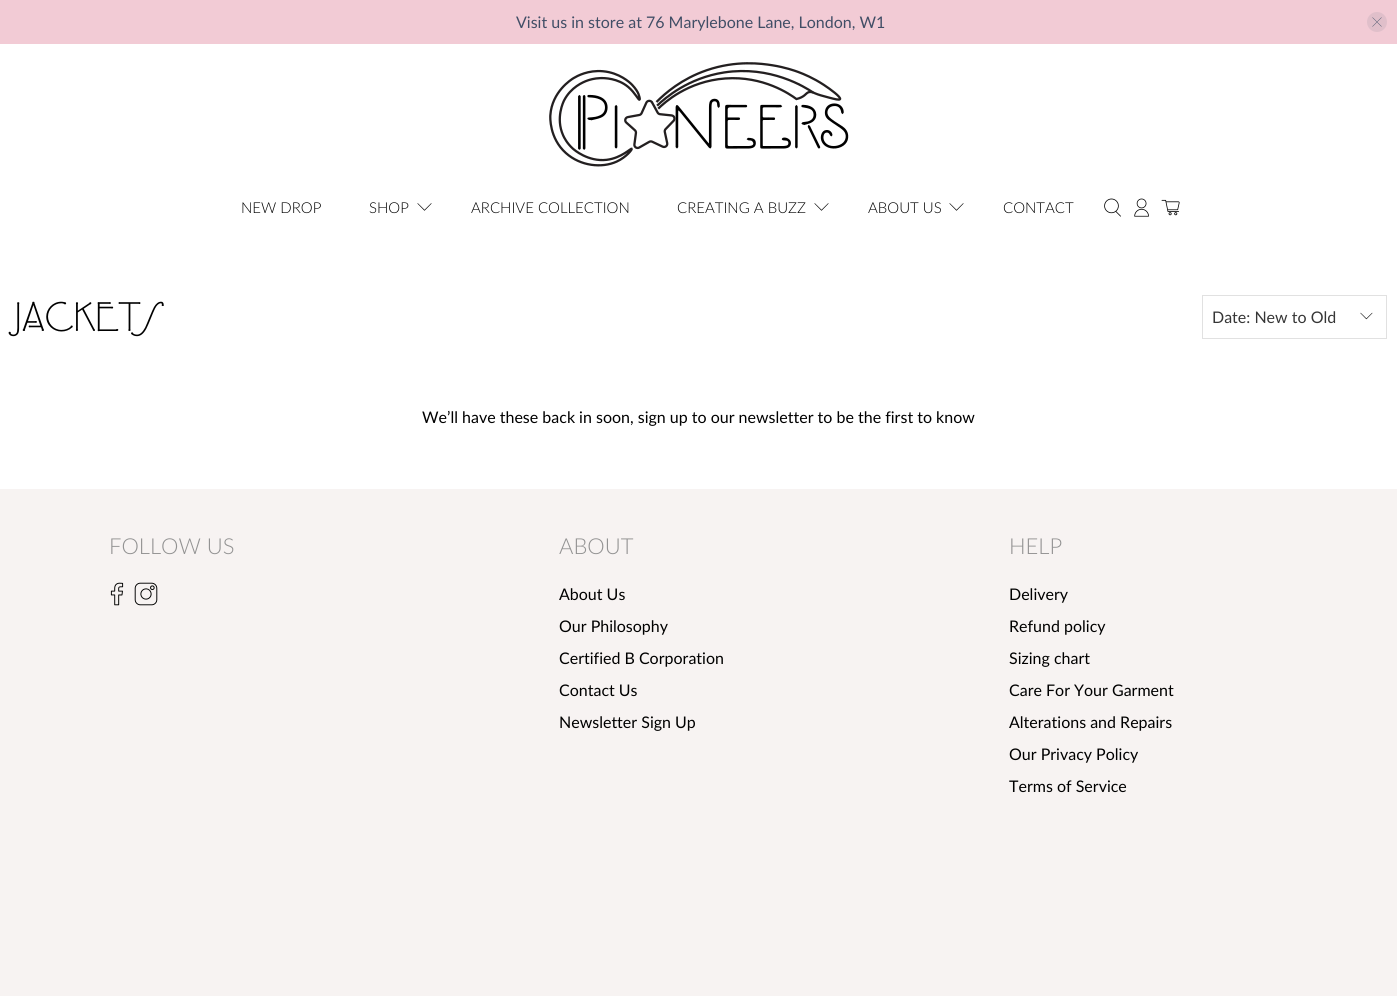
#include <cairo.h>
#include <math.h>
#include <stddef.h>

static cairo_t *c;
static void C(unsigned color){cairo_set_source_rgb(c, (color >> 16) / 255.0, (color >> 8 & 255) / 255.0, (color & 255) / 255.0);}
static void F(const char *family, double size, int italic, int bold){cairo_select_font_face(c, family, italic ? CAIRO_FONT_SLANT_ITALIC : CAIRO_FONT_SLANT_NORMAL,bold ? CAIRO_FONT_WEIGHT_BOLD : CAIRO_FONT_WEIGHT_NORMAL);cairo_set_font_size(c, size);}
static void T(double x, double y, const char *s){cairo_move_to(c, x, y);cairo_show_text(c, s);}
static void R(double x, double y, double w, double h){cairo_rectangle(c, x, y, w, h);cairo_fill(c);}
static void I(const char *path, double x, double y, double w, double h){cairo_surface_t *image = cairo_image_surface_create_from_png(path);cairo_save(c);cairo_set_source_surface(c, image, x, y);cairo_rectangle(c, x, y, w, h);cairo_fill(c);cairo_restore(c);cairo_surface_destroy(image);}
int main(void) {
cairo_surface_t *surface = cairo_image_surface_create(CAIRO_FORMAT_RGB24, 1397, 996);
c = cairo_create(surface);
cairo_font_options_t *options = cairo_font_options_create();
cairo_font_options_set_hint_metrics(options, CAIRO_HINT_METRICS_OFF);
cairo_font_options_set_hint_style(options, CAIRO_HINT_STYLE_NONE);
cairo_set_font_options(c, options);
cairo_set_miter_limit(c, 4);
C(0xffffff);
cairo_paint(c);
C(0xf2cbd5);
R(0,0,1397,44);
F("Lato",16,0,0);
C(0x414e66);
T(516,28,"Visit us in store at 76 Marylebone Lane, London, W1");
C(0xe0bfca);
cairo_new_path(c);
cairo_arc(c,1377,22,10,0,2 * M_PI);
cairo_fill(c);
I("1.png",1372,17,10,10);
I("2.png",549,62,300,105);
F("Lato Light",15,0,0);
C(0x000000);
T(241,213,"NEW DROP");
T(369,213,"SHOP");
I("3.png",417,203,15,8);
T(471,213,"ARCHIVE COLLECTION");
T(677,213,"CREATING A BUZZ");
I("3.png",814,203,15,8);
T(868,213,"ABOUT US");
I("3.png",949,203,15,8);
T(1003,213,"CONTACT");
I("4.png",1104,198,17,19);
I("5.png",1134,198,15,19);
I("6.png",1161,199,19,17);
I("7.png",8,301,156,36);
cairo_rectangle(c,1202.5,295.5,184,43);
C(0xe1e1e1);
cairo_set_line_width(c,1);
cairo_stroke(c);
F("Lato",16,0,0);
C(0x363636);
T(1212,323,"Date: New to Old");
I("8.png",1360,312,13,8);
C(0x000000);
T(422,423,"We’ll have these back in soon, sign up to our newsletter to be the first to know");
C(0xf7f3f2);
R(0,489,1397,507);
F("Lato Light",22,0,0);
C(0x929292);
T(109,554,"FOLLOW US");
I("9.png",110,582,14,24);
I("10.png",134,582,24,24);
T(559,554,"ABOUT");
F("Lato",16,0,0);
C(0x000000);
T(559,600,"About Us");
T(559,632,"Our Philosophy");
T(559,664,"Certified B Corporation");
T(559,696,"Contact Us");
T(559,728,"Newsletter Sign Up");
F("Lato Light",22,0,0);
C(0x929292);
T(1009,554,"HELP");
F("Lato",16,0,0);
C(0x000000);
T(1009,600,"Delivery");
T(1009,632,"Refund policy");
T(1009,664,"Sizing chart");
T(1009,696,"Care For Your Garment");
T(1009,728,"Alterations and Repairs");
T(1009,760,"Our Privacy Policy");
T(1009,792,"Terms of Service");
cairo_surface_write_to_png(surface, "o.png");
cairo_font_options_destroy(options);
cairo_destroy(c);
cairo_surface_destroy(surface);
return 0;
}
